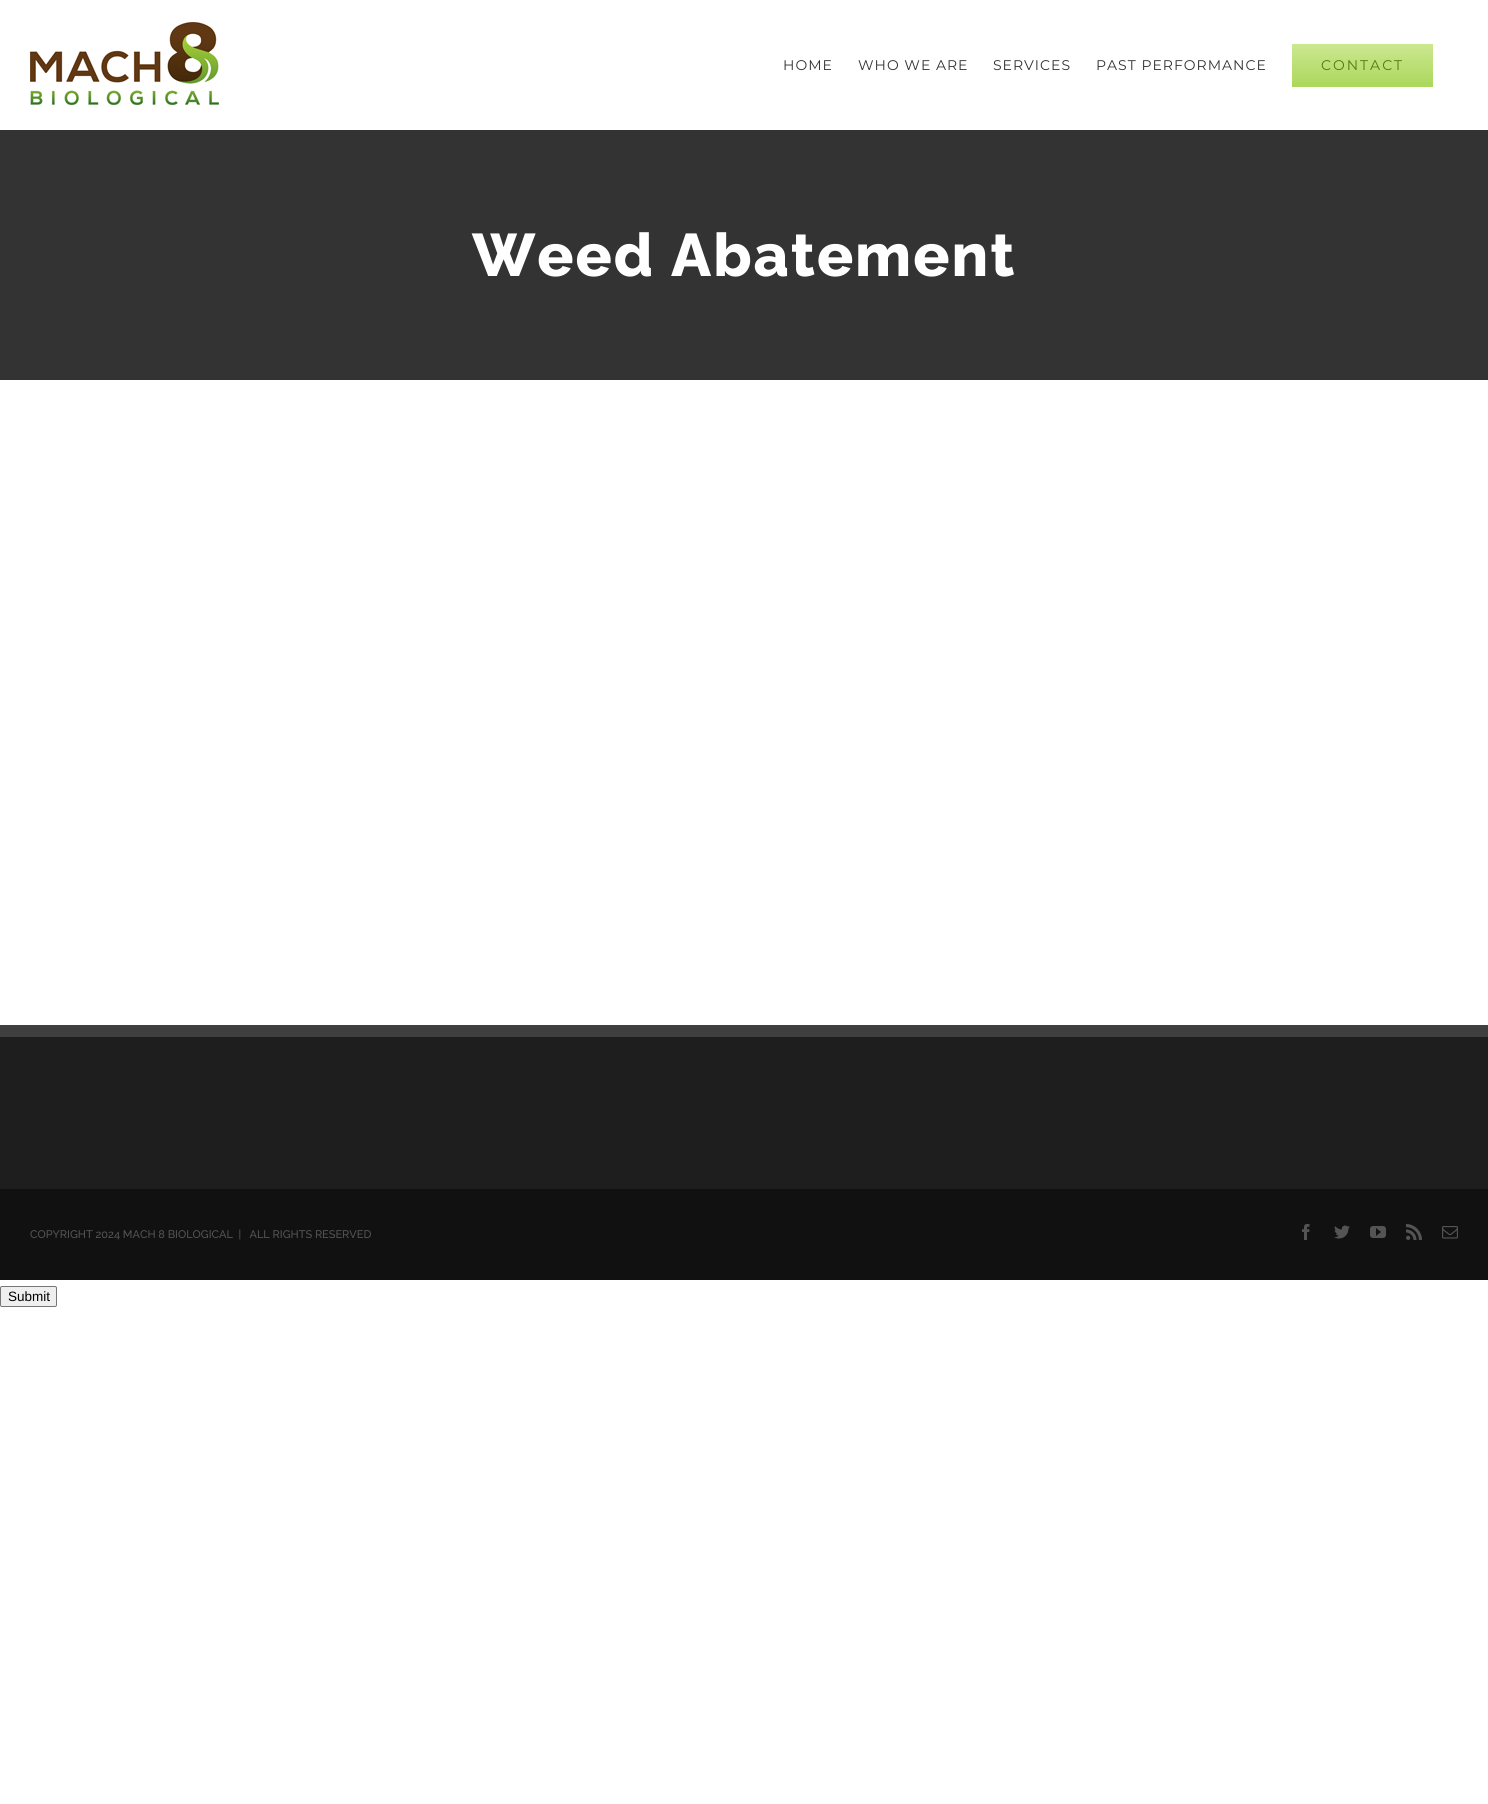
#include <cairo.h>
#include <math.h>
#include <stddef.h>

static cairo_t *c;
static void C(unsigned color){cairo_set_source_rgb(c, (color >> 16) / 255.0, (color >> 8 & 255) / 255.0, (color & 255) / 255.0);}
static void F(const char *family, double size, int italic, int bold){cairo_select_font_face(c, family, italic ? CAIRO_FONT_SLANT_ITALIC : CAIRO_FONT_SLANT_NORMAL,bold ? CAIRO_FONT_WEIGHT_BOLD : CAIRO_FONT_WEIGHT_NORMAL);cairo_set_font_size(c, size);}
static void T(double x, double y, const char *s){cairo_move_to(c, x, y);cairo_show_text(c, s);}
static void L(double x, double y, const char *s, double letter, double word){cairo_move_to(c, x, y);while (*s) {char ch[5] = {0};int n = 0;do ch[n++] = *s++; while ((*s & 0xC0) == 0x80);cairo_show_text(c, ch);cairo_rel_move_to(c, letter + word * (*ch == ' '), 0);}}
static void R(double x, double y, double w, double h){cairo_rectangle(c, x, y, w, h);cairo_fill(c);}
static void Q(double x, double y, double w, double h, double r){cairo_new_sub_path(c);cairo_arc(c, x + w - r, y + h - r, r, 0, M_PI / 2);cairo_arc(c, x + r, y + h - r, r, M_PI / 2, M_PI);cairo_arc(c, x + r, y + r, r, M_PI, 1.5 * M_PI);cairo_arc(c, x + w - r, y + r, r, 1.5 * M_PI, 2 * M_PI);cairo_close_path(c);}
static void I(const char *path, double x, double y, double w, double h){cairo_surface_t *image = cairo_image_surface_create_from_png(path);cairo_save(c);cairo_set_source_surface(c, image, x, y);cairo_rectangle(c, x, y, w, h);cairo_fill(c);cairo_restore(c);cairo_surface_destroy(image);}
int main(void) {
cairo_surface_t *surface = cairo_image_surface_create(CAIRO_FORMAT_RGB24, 1488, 1804);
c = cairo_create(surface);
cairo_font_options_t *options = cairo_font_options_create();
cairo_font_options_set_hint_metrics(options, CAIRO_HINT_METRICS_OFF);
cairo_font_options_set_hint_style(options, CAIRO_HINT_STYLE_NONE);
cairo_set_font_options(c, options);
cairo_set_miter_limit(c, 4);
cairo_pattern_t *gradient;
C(0xffffff);
cairo_paint(c);
I("1.png",30,22,189,83);
F("Montserrat",14,0,0);
C(0x333333);
L(783,70,"HOME",1,0);
L(858,70,"WHO WE ARE",1,0);
L(993,70,"SERVICES",1,0);
L(1096,70,"PAST PERFORMANCE",1,0);
gradient = cairo_pattern_create_linear(1363,87,1363,44);
cairo_pattern_add_color_stop_rgba(gradient,0,0.667,0.843,0.357,1);
cairo_pattern_add_color_stop_rgba(gradient,1,0.8,0.91,0.565,1);
cairo_set_source(c,gradient);
cairo_pattern_destroy(gradient);
R(1292,44,141,43);
C(0x577810);
L(1321,70,"CONTACT",2,0);
C(0x333333);
R(0,130,1488,250);
F("Raleway ExtraBold",60,0,0);
C(0xffffff);
L(472,276,"Weed Abatement",2,0);
C(0x1e1e1e);
R(0,1037,1488,152);
C(0x3f3f3f);
R(0,1025,1488,12);
C(0x111111);
R(0,1189,1488,91);
F("Raleway Medium",11,0,0);
C(0x545454);
T(30,1238,"COPYRIGHT 2024 MACH 8 BIOLOGICAL  |   ALL RIGHTS RESERVED");
I("2.png",1302,1224,8,16);
I("3.png",1334,1225,16,14);
I("4.png",1370,1226,16,12);
I("5.png",1406,1224,16,16);
I("6.png",1442,1226,16,13);
C(0xefefef);
Q(.5,1286.5,56,20,1.5);
cairo_fill_preserve(c);
C(0x767676);
cairo_set_line_width(c,1);
cairo_stroke(c);
F("Liberation Sans",13.5,0,0);
C(0x000000);
T(8,1301,"Submit");
cairo_surface_write_to_png(surface, "o.png");
cairo_font_options_destroy(options);
cairo_destroy(c);
cairo_surface_destroy(surface);
return 0;
}
